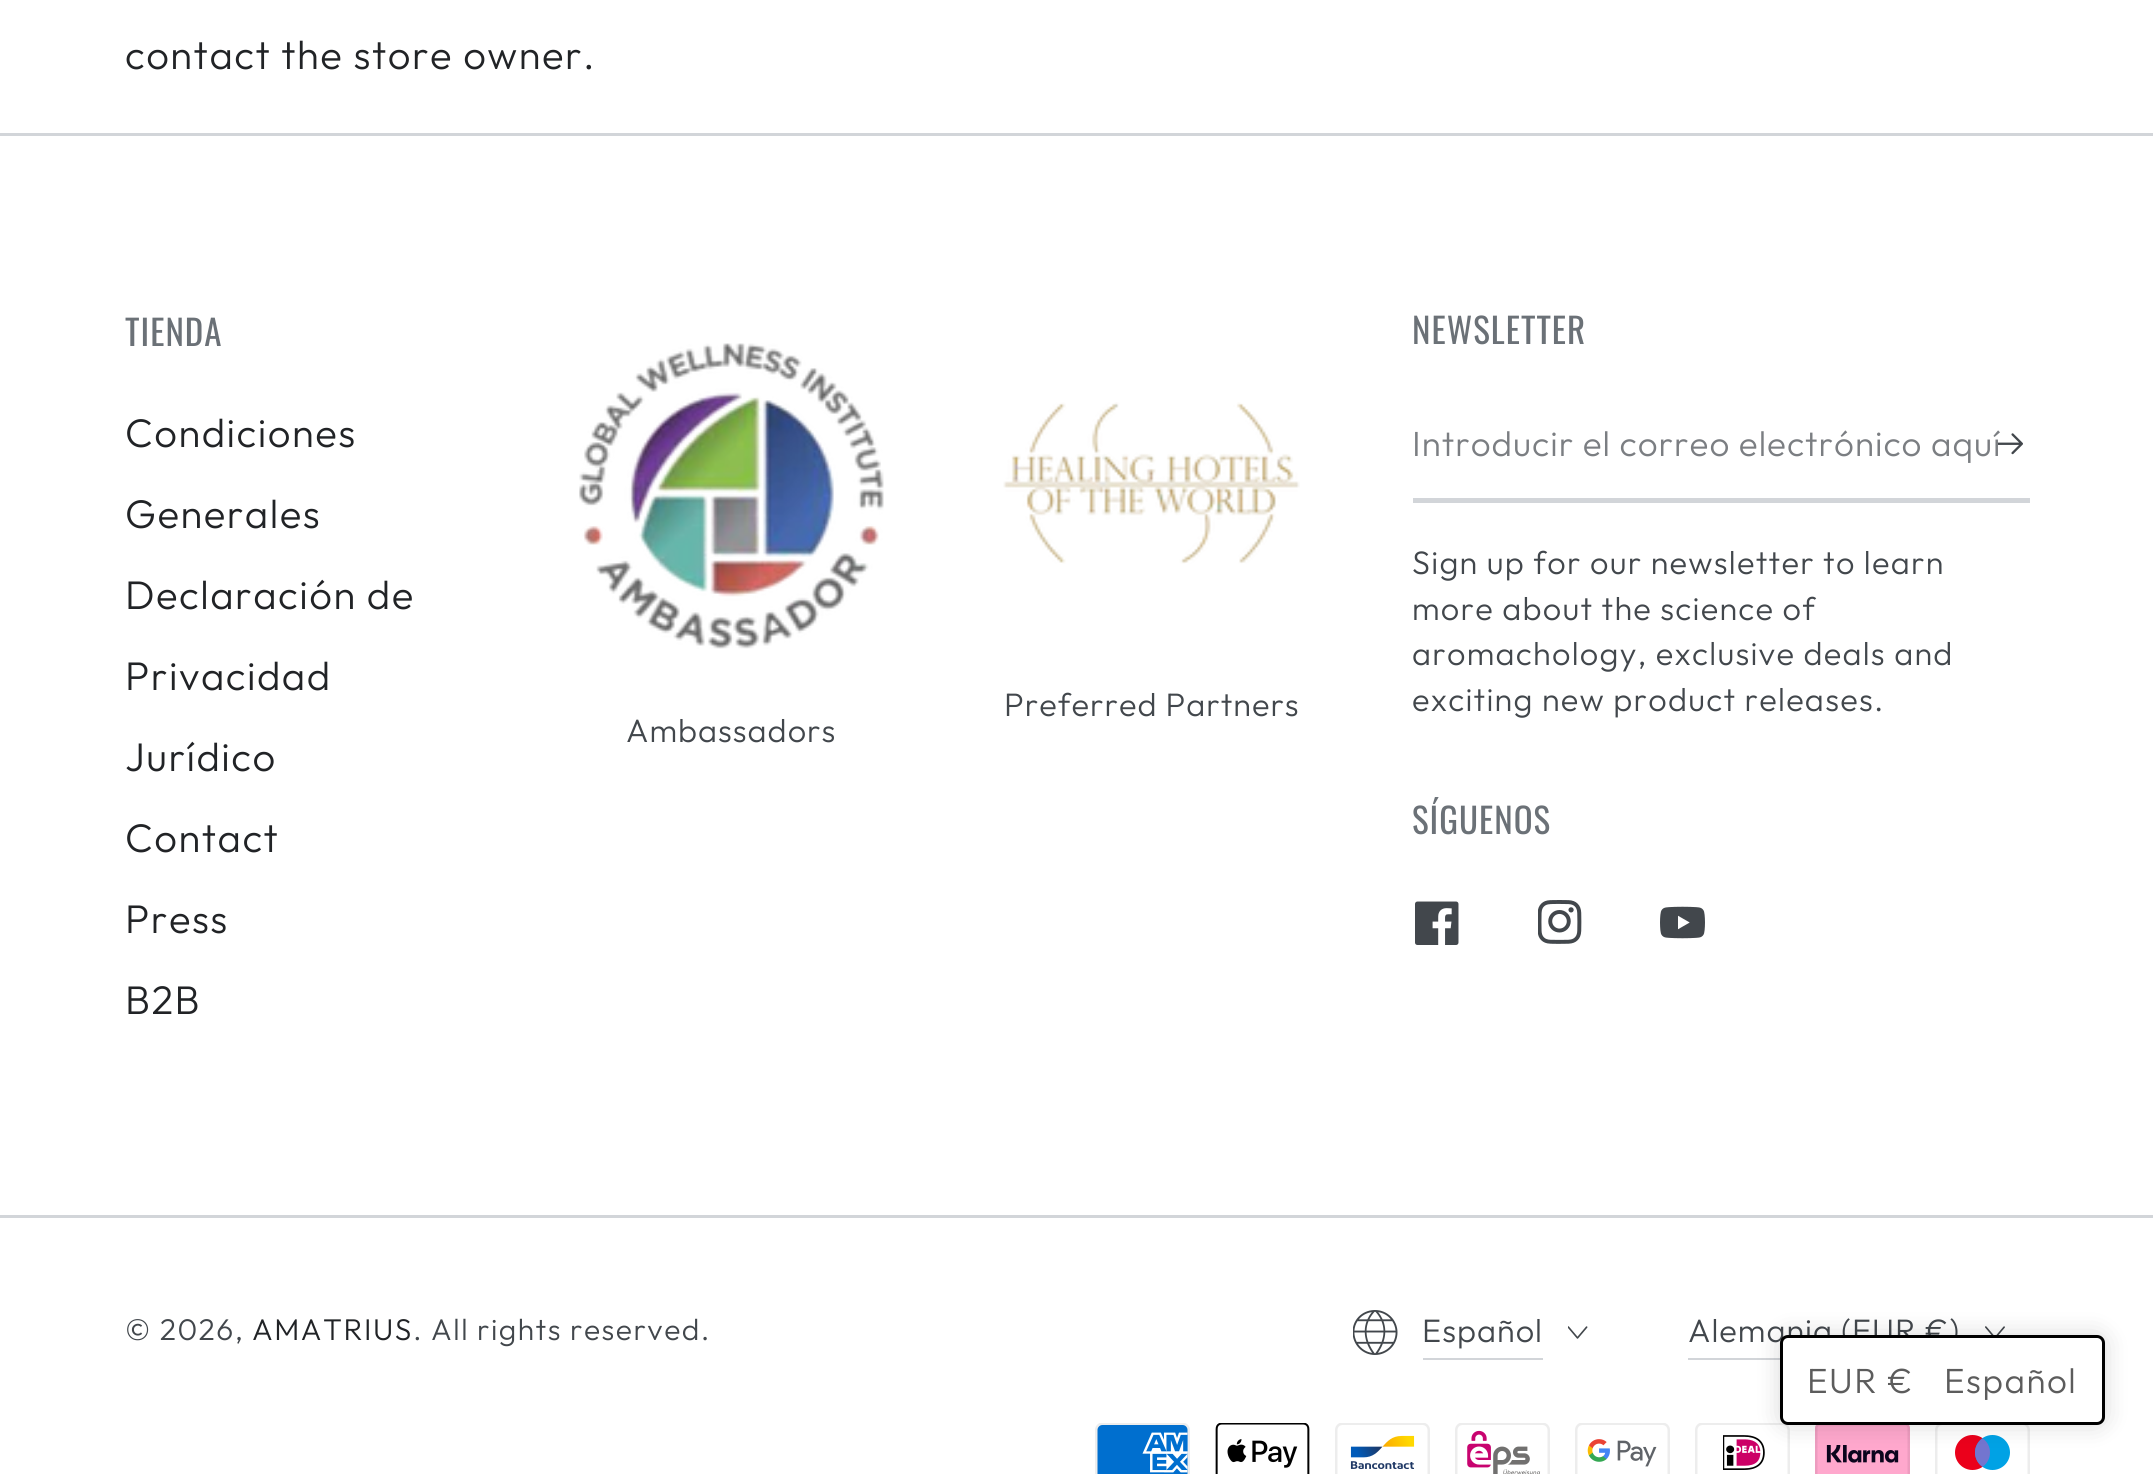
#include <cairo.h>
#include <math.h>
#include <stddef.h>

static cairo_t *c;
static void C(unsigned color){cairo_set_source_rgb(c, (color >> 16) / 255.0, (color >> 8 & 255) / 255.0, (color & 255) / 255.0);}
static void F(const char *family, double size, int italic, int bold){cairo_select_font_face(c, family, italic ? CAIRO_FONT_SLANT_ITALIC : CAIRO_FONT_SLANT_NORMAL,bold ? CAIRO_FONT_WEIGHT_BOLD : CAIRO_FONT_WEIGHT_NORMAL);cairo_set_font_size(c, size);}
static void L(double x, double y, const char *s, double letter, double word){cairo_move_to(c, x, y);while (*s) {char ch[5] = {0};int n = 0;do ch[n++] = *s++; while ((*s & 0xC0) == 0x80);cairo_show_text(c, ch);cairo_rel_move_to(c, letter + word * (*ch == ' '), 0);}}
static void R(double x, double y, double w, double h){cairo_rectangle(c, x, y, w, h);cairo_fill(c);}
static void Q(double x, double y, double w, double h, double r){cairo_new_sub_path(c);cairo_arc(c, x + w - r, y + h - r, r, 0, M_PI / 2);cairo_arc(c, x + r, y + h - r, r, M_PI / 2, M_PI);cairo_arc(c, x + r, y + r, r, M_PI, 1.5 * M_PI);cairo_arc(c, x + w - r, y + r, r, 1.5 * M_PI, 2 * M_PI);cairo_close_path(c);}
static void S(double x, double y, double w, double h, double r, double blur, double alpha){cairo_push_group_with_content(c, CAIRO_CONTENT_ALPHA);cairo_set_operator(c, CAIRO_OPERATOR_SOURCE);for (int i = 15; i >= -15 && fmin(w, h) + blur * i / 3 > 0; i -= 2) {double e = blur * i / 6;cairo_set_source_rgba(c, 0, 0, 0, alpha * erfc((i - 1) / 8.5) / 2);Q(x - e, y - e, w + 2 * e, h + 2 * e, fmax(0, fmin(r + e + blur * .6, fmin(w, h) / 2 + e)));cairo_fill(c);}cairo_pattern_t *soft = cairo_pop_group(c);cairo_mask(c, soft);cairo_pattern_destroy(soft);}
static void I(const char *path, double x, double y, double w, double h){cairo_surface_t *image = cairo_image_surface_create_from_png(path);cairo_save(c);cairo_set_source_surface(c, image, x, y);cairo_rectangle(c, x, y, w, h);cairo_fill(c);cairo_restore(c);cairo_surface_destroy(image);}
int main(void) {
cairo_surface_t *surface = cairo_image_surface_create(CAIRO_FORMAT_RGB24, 2153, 1474);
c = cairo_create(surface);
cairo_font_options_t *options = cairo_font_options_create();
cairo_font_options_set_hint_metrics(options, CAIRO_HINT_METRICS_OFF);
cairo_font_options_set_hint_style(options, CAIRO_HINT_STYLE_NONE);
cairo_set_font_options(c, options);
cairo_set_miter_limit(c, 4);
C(0xffffff);
cairo_paint(c);
F("Outfit Light",40,0,0);
C(0x212326);
L(125,69,"contact the store owner.",1.5,0);
C(0xd2d5d9);
R(0,133,2153,3);
F("Oswald",35,0,0);
C(0x6b7177);
L(125,346,"TIENDA",1,0);
F("Outfit Light",40,0,0);
C(0x212326);
L(125,447,"Condiciones",1.5,0);
L(125,528,"Generales",1.5,0);
L(125,609,"Declaración de",1.5,0);
L(125,690,"Privacidad",1.5,0);
L(125,771,"Jurídico",1.5,0);
L(125,852,"Contact",1.5,0);
L(125,933,"Press",1.5,0);
L(125,1014,"B2B",1.5,0);
I("1.png",1003,402,297,162);
F("Outfit Light",32.5,0,0);
C(0x42474c);
L(1004,716,"Preferred Partners",1,0);
I("2.png",579,343,305,306);
L(626,742,"Ambassadors",1,0);
F("Oswald",35,0,0);
C(0x6b7177);
L(1412,344,"NEWSLETTER",1,0);
C(0xd2d5d9);
R(1413,498,617,5);
F("Outfit Light",35,0,0);
C(0x7b7e82);
L(1412,456,"Introducir el correo electrónico aquí",1,0);
I("3.png",1998,433,25,22);
F("Outfit Light",32.5,0,0);
C(0x42474c);
L(1412,574,"Sign up for our newsletter to learn",1.25,0);
L(1412,620,"more about the science of",1.25,0);
L(1412,665,"aromachology, exclusive deals and",1.25,0);
L(1412,711,"exciting new product releases.",1.25,0);
F("Oswald",35,0,0);
C(0x6b7177);
L(1412,834,"SÍGUENOS",1,0);
I("4.png",1415,901,44,44);
I("5.png",1538,900,44,44);
I("6.png",1660,906,45,33);
C(0xd2d5d9);
R(0,1215,2153,3);
F("Outfit Light",30,0,0);
C(0x42474c);
L(125,1340,"© 2026,",1.5,0);
C(0x212326);
L(252,1340,"AMATRIUS",1.5,0);
C(0x42474c);
L(413,1340,". All rights reserved.",1.5,0);
I("7.png",1353,1310,45,45);
C(0xd2d5d9);
R(1423,1358,120,2);
F("Outfit Light",32.5,0,0);
C(0x42474c);
L(1422,1342,"Español",1,0);
I("8.png",1568,1326,20,13);
C(0xd2d5d9);
R(1688,1358,92,2);
C(0x42474c);
L(1688,1342,"Alemania (EUR €)",1,0);
I("9.png",1985,1326,20,9);
I("10.png",1095,1423,95,51);
I("11.png",1215,1423,95,51);
I("12.png",1335,1423,95,51);
I("13.png",1455,1423,95,51);
I("14.png",1575,1423,95,51);
I("15.png",1695,1423,95,51);
I("16.png",1815,1425,95,49);
I("17.png",1935,1425,95,49);
C(0x000000);
S(1780,1335,325,90,8,12.5,.15);
C(0xffffff);
Q(1781.5,1336.5,322,87,6.5);
cairo_fill_preserve(c);
C(0x000000);
cairo_set_line_width(c,3);
cairo_stroke(c);
F("Outfit Light",35,0,0);
C(0x5c5c5c);
L(1807,1393,"EUR €",1.5,0);
L(1944,1393,"Español",1.5,0);
cairo_surface_write_to_png(surface, "o.png");
cairo_font_options_destroy(options);
cairo_destroy(c);
cairo_surface_destroy(surface);
return 0;
}
